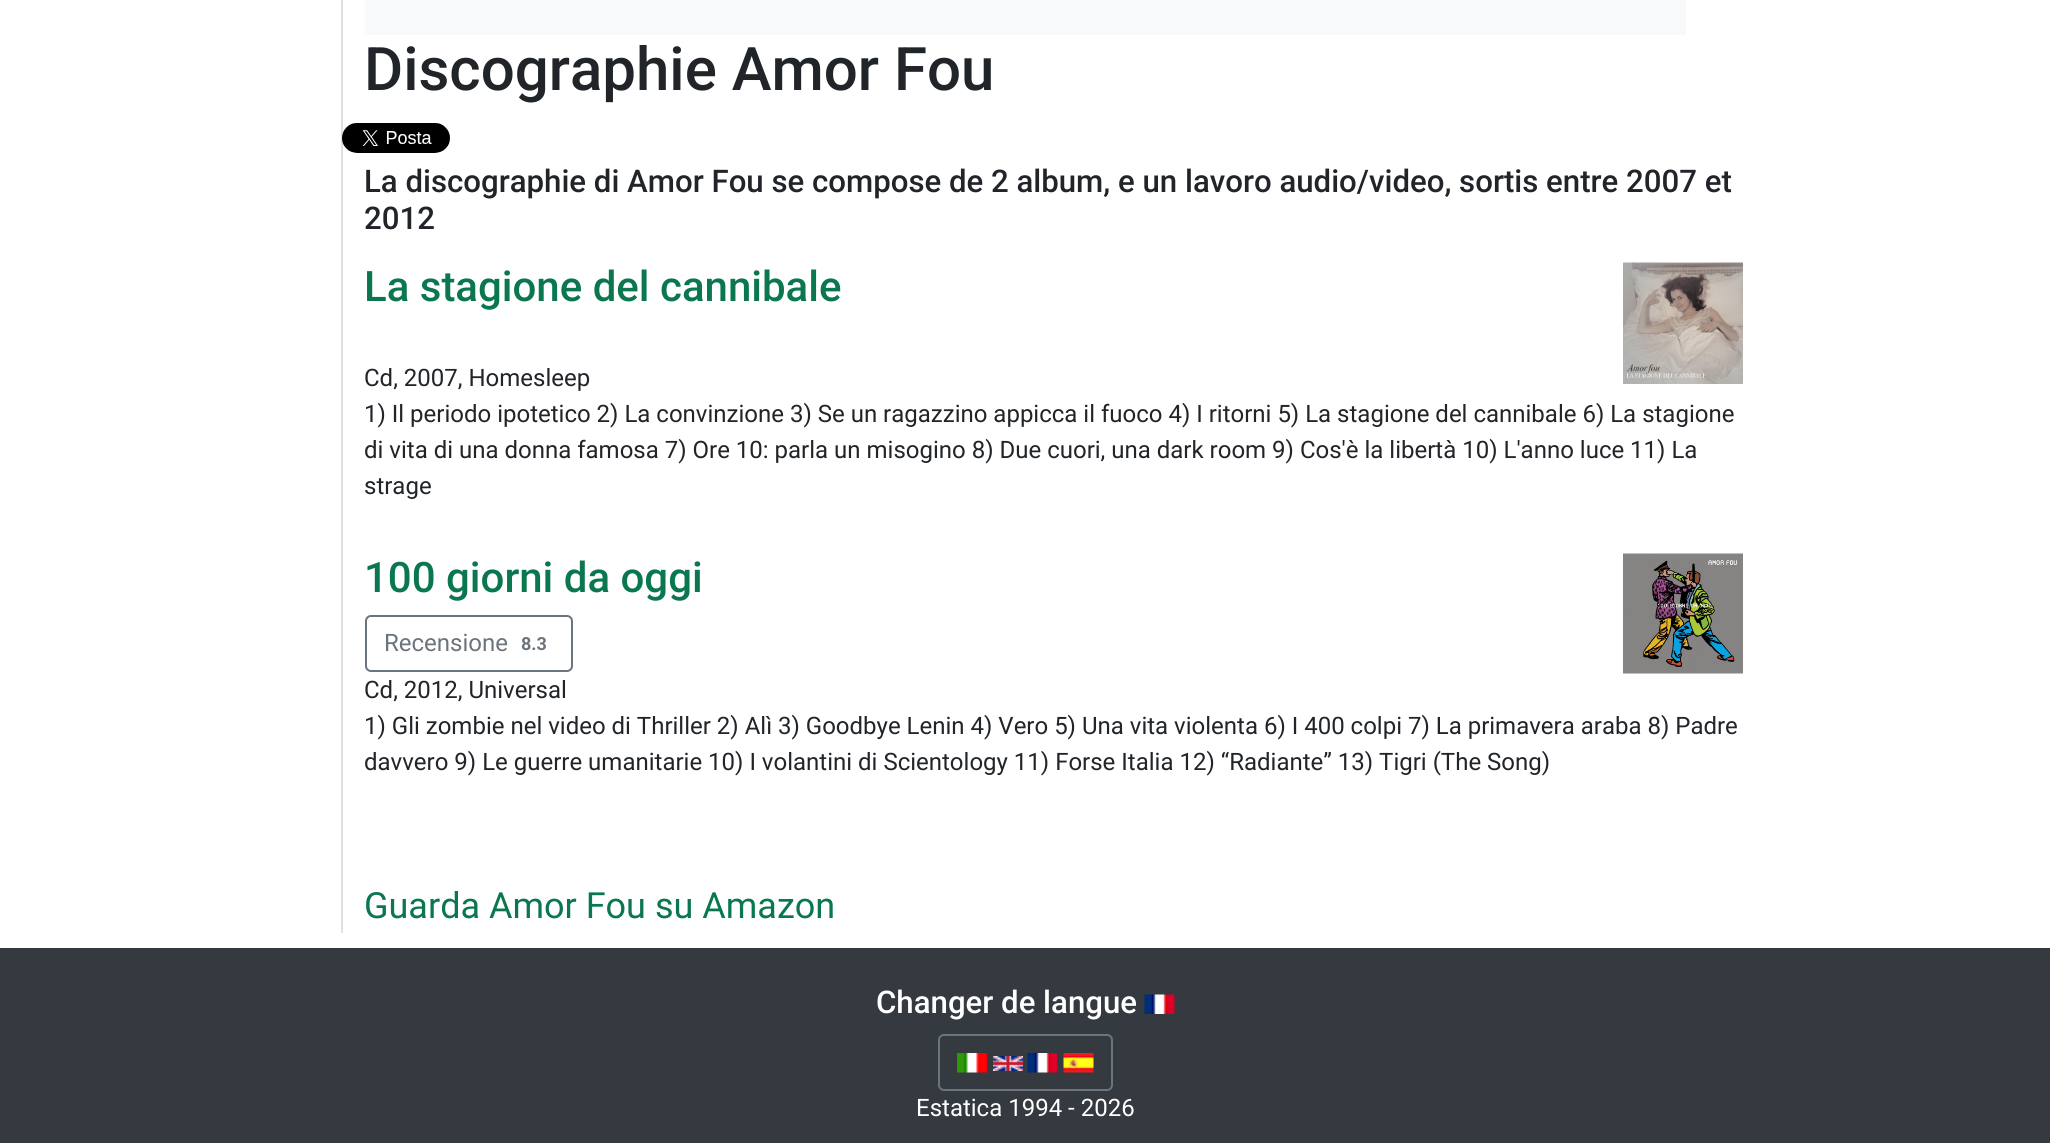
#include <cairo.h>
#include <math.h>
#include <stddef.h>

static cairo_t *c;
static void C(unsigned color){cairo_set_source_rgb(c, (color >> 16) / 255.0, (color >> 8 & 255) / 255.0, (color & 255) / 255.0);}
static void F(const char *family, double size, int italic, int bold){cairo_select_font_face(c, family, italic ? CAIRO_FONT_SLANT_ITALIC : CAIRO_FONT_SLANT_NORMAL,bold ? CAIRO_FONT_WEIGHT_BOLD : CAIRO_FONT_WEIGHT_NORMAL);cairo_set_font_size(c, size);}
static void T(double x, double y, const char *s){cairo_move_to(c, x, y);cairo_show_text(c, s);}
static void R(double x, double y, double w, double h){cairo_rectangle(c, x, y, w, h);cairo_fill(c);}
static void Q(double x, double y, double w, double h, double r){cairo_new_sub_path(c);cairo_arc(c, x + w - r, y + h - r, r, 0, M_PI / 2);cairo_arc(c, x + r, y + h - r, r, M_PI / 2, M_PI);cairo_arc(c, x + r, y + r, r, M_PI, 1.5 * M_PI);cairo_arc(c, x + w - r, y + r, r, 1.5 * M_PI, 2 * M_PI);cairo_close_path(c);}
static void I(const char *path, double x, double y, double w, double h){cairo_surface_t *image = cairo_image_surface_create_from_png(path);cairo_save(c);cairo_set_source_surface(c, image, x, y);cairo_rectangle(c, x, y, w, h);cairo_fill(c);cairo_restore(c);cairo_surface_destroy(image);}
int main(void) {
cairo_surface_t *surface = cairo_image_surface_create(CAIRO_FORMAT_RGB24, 2050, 1143);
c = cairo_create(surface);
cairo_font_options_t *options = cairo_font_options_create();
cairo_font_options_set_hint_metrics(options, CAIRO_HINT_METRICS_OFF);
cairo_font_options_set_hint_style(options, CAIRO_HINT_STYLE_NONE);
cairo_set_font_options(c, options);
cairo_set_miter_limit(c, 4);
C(0xffffff);
cairo_paint(c);
C(0xdee2e6);
R(341,0,2,933);
C(0xf8f9fa);
R(365,0,1321,35);
F("Roboto Medium",60,0,0);
C(0x212529);
T(364,90,"Discographie Amor Fou");
I("1.png",342,123,108,30);
F("Roboto Medium",31.2,0,0);
T(364,192,"La discographie di Amor Fou se compose de 2 album, e un lavoro audio/video, sortis entre 2007 et");
T(364,229,"2012");
F("Roboto Medium",42,0,0);
C(0x0a774f);
T(364,301,"La stagione del cannibale");
I("2.png",1623,262,120,122);
F("Roboto",24,0,0);
C(0x212529);
T(364,386,"Cd, 2007, Homesleep");
T(364,422,"1) Il periodo ipotetico 2) La convinzione 3) Se un ragazzino appicca il fuoco 4) I ritorni 5) La stagione del cannibale 6) La stagione");
T(364,458,"di vita di una donna famosa 7) Ore 10: parla un misogino 8) Due cuori, una dark room 9) Cos'è la libertà 10) L'anno luce 11) La");
T(364,494,"strage");
F("Roboto Medium",42,0,0);
C(0x0a774f);
T(364,592,"100 giorni da oggi");
I("3.png",1623,553,120,121);
Q(366,616,206,55,5);
C(0x6c757d);
cairo_stroke(c);
F("Roboto",24,0,0);
T(384,651,"Recensione");
F("Roboto",18,0,1);
T(521,650,"8.3");
F("Roboto",24,0,0);
C(0x212529);
T(364,698,"Cd, 2012, Universal");
T(364,734,"1) Gli zombie nel video di Thriller 2) Alì 3) Goodbye Lenin 4) Vero 5) Una vita violenta 6) I 400 colpi 7) La primavera araba 8) Padre");
T(364,770,"davvero 9) Le guerre umanitarie 10) I volantini di Scientology 11) Forse Italia 12) “Radiante” 13) Tigri (The Song)");
F("Roboto",36,0,0);
C(0x0a774f);
T(364,918,"Guarda Amor Fou su Amazon");
C(0x343a40);
R(0,948,2050,195);
F("Roboto Medium",31.2,0,0);
C(0xffffff);
T(876,1013,"Changer de langue");
I("4.png",1144,994,31,20);
Q(939,1035,173,55,5);
C(0x6c757d);
cairo_stroke(c);
I("5.png",957,1053,30,20);
I("6.png",993,1056,30,15);
I("7.png",1027,1053,31,20);
I("8.png",1063,1053,31,20);
F("Roboto",24,0,0);
C(0xffffff);
T(916,1116,"Estatica 1994 - 2026");
cairo_surface_write_to_png(surface, "o.png");
cairo_font_options_destroy(options);
cairo_destroy(c);
cairo_surface_destroy(surface);
return 0;
}
